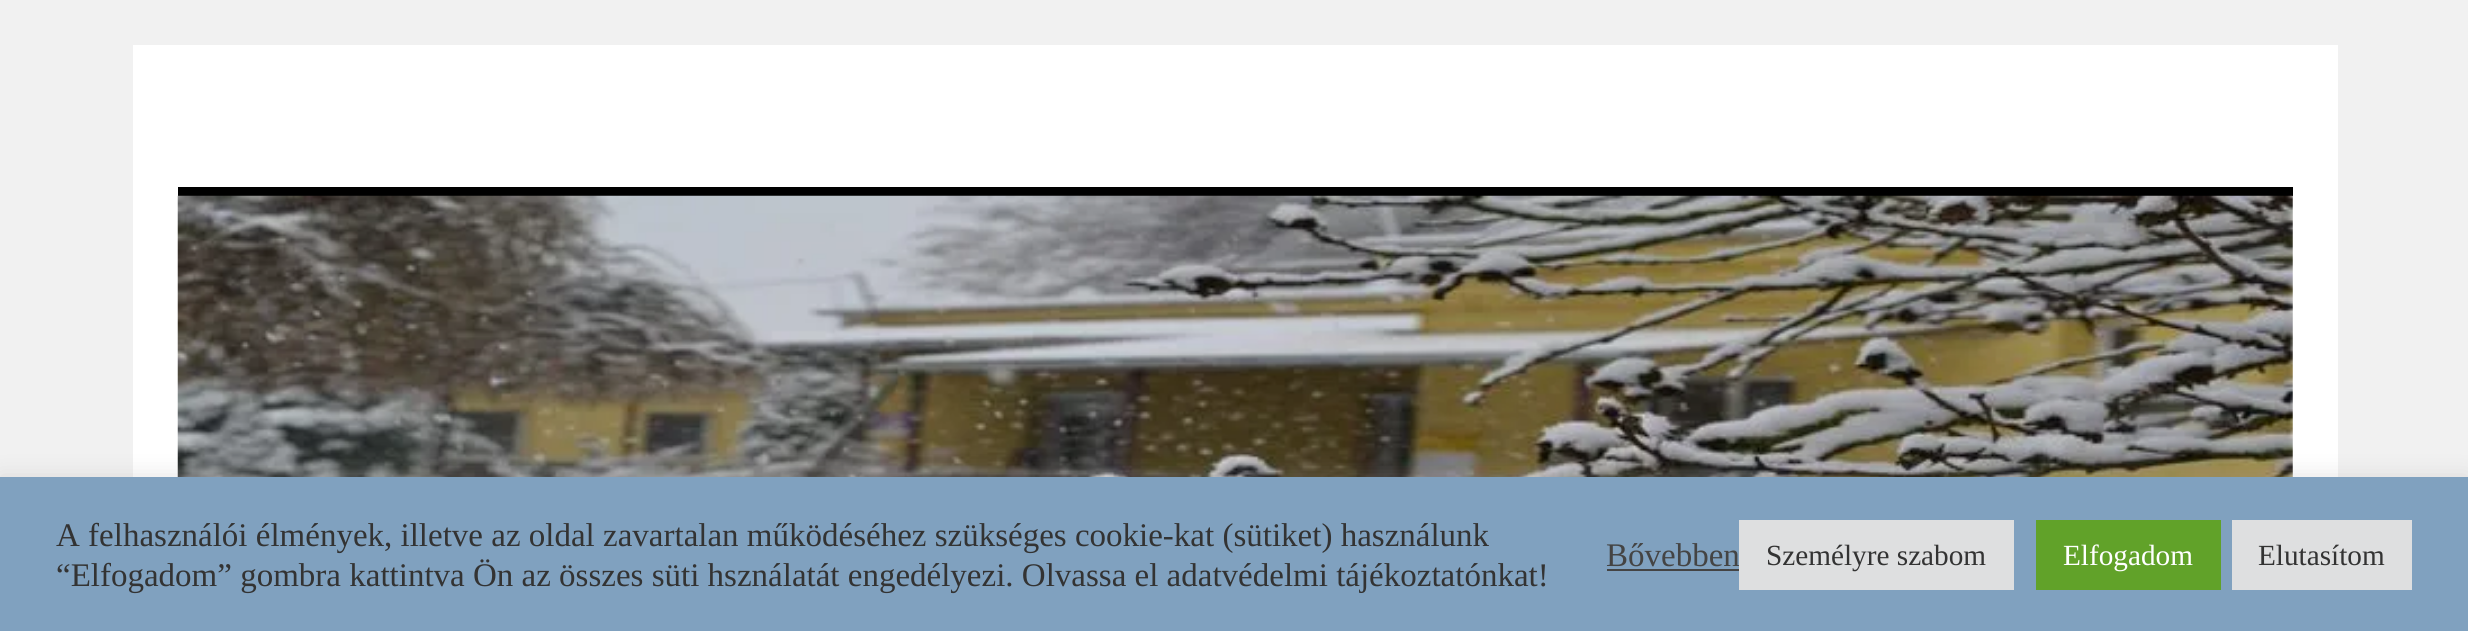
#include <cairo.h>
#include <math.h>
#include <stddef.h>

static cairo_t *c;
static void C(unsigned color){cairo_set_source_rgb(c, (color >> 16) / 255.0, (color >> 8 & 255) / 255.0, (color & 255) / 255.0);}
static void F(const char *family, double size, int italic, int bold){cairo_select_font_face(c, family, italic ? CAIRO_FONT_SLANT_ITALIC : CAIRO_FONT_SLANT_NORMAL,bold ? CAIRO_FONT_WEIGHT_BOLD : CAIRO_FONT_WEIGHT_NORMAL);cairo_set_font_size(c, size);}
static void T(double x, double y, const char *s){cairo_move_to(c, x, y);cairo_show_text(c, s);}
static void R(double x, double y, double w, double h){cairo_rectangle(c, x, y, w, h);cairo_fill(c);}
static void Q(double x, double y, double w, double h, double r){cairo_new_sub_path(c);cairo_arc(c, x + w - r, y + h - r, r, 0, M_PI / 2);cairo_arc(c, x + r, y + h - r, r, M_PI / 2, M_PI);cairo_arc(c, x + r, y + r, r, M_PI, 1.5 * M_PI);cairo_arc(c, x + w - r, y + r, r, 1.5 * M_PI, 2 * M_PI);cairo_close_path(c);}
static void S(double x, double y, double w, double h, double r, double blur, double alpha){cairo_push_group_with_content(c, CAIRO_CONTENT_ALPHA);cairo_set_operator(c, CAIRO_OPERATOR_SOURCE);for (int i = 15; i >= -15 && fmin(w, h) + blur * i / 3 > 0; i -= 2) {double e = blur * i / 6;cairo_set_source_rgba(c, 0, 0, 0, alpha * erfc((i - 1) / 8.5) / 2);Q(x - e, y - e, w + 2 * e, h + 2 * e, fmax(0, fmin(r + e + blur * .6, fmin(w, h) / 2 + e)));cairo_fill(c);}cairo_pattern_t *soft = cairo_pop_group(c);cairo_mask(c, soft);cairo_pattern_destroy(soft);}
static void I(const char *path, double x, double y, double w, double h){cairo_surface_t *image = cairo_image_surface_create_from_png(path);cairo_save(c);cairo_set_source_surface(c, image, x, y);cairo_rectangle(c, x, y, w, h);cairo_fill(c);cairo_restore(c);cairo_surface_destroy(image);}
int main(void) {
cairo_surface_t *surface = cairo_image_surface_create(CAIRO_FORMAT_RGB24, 2468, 631);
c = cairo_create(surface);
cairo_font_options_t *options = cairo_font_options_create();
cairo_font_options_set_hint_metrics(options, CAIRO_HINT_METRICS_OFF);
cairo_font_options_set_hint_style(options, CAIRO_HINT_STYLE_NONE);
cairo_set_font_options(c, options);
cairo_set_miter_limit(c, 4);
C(0xf1f1f1);
cairo_paint(c);
C(0xffffff);
R(133,45,2205,432);
C(0x000000);
R(178,187,2115,9);
I("1.png",177,195,2116,282);
C(0xacabab);
S(0,475,2468,155,0,11,.3);
C(0x80a1bf);
R(0,477,2468,154);
F("Liberation Serif",33,0,0);
C(0x333333);
T(56,546,"A felhasználói élmények, illetve az oldal zavartalan működéséhez szükséges cookie-kat (sütiket) használunk");
T(56,586,"“Elfogadom” gombra kattintva Ön az összes süti hsználatát engedélyezi. Olvassa el adatvédelmi tájékoztatónkat!");
C(0x444444);
T(1606,566,"Bővebben");
R(1607,569,132,2);
C(0xdedfe0);
R(1739,520,275,70);
F("Liberation Serif",29.25,0,0);
C(0x333333);
T(1766,565,"Személyre szabom");
C(0x61a229);
R(2036,520,185,70);
C(0xffffff);
T(2063,565,"Elfogadom");
C(0xdedfe0);
R(2232,520,180,70);
C(0x333333);
T(2258,565,"Elutasítom");
cairo_surface_write_to_png(surface, "o.png");
cairo_font_options_destroy(options);
cairo_destroy(c);
cairo_surface_destroy(surface);
return 0;
}
